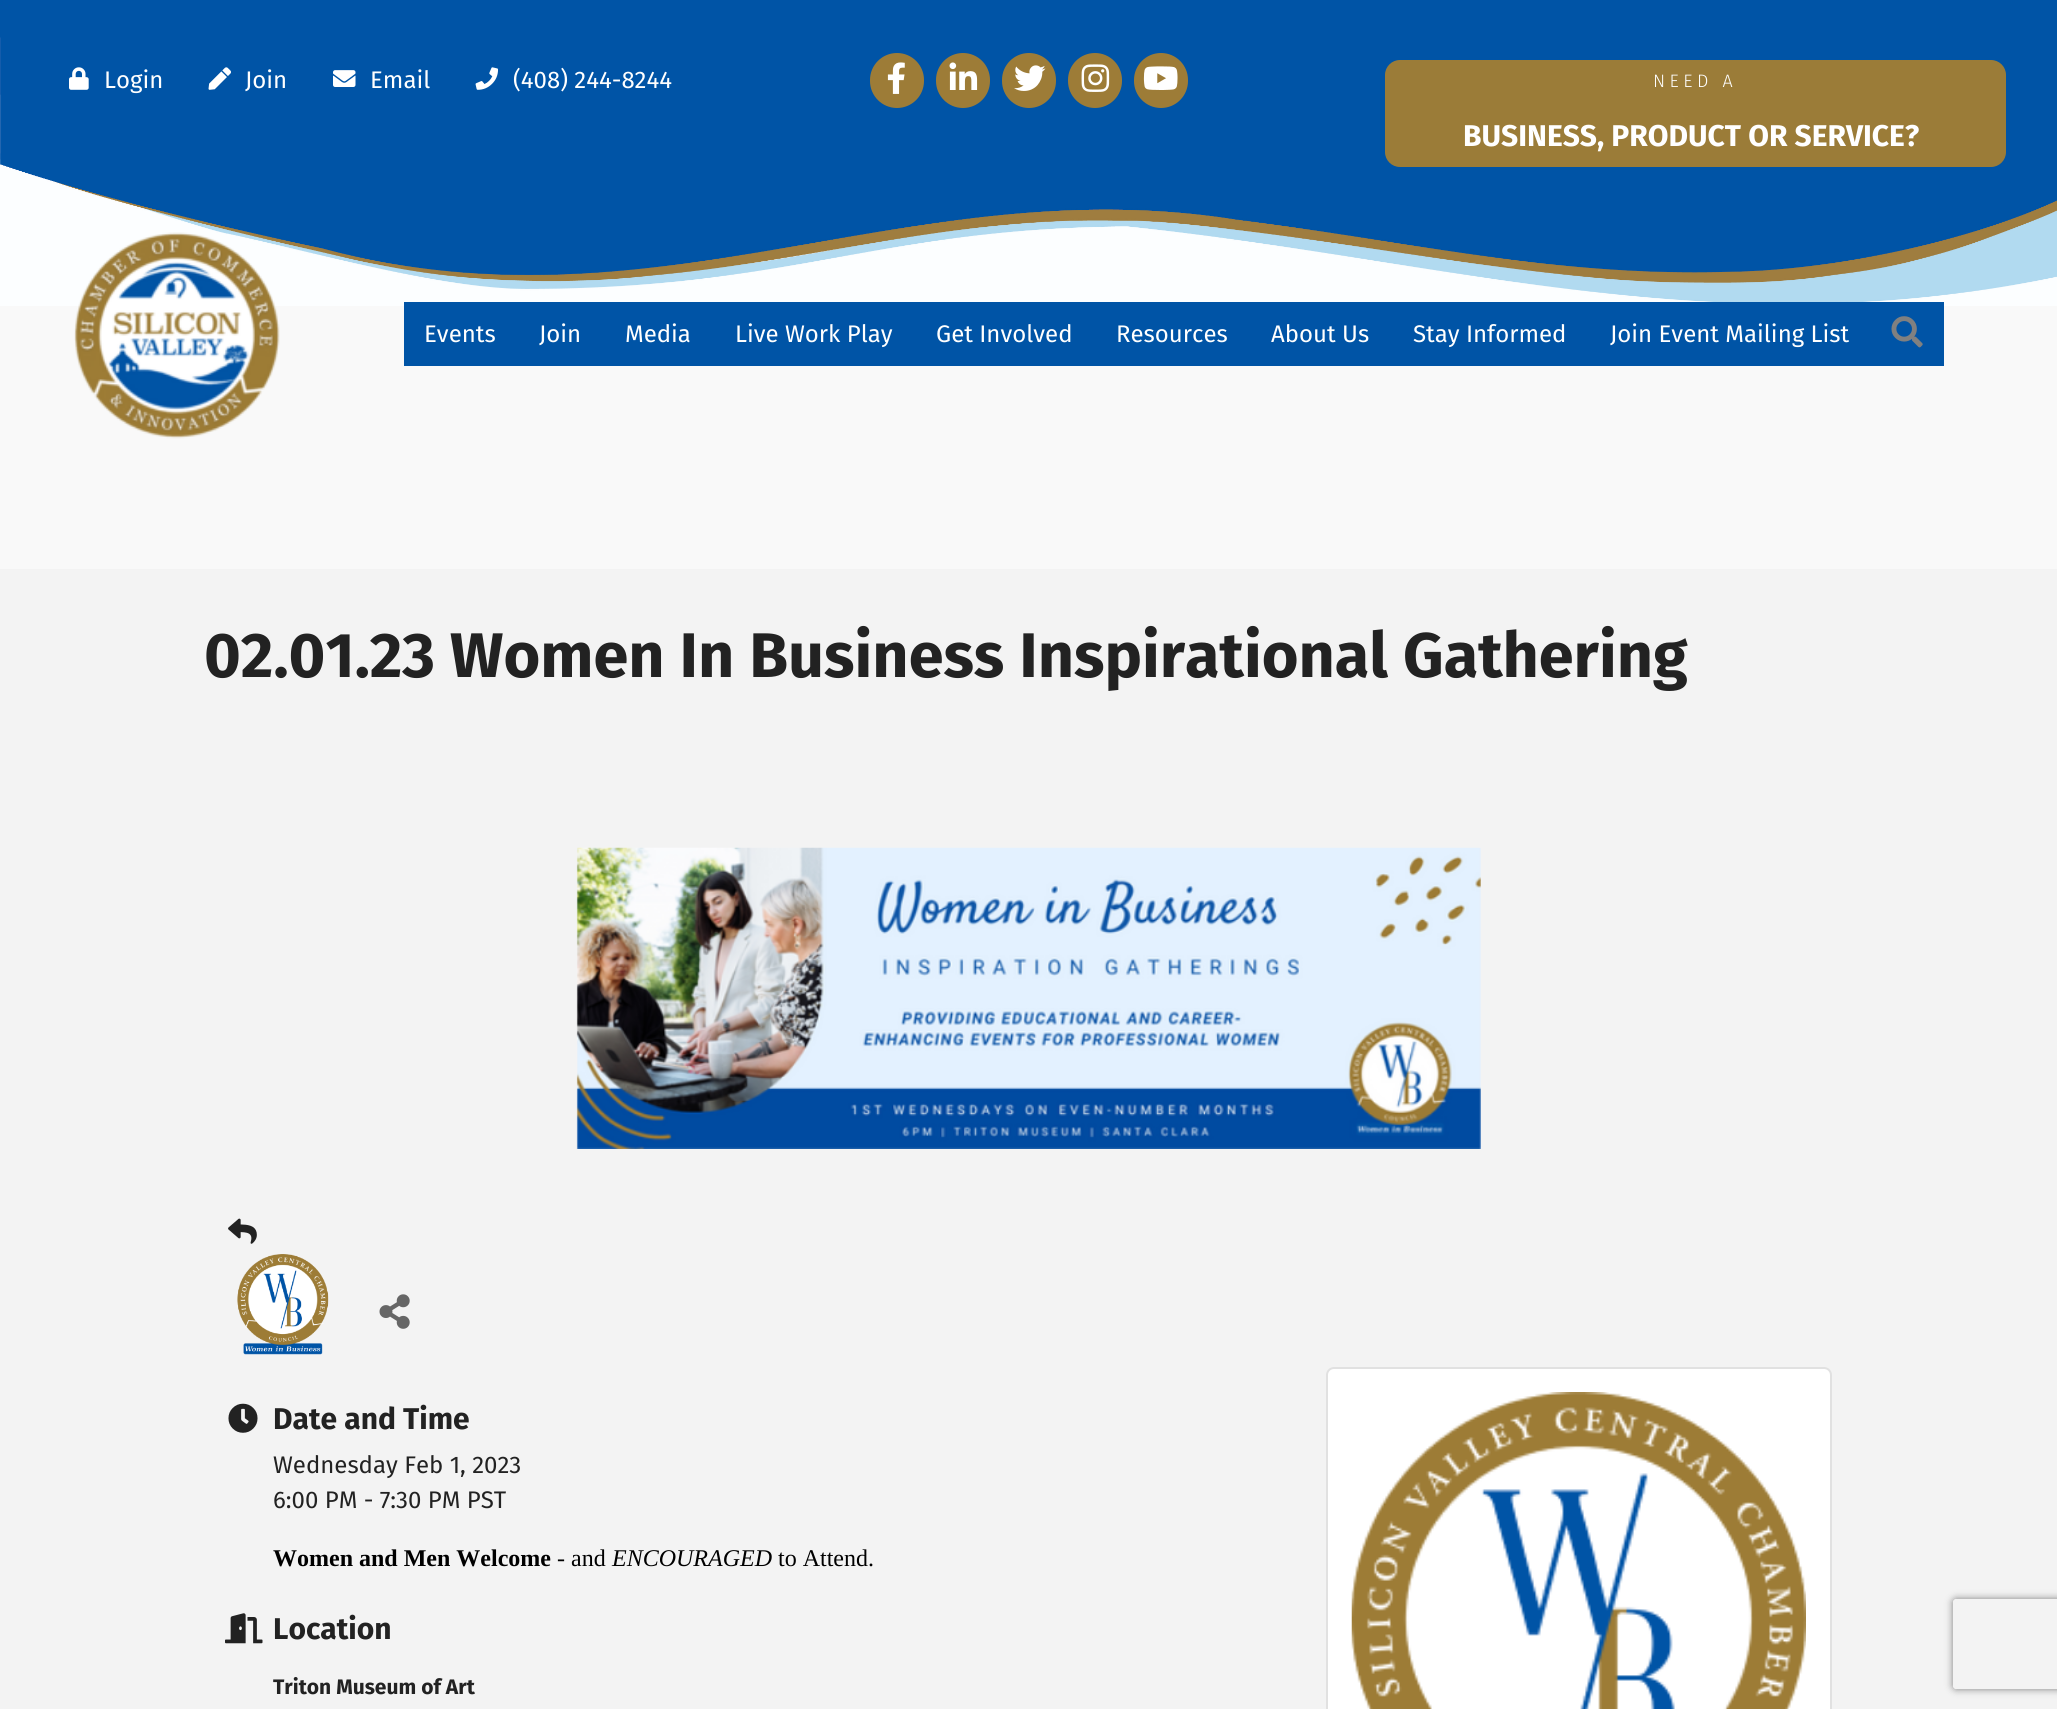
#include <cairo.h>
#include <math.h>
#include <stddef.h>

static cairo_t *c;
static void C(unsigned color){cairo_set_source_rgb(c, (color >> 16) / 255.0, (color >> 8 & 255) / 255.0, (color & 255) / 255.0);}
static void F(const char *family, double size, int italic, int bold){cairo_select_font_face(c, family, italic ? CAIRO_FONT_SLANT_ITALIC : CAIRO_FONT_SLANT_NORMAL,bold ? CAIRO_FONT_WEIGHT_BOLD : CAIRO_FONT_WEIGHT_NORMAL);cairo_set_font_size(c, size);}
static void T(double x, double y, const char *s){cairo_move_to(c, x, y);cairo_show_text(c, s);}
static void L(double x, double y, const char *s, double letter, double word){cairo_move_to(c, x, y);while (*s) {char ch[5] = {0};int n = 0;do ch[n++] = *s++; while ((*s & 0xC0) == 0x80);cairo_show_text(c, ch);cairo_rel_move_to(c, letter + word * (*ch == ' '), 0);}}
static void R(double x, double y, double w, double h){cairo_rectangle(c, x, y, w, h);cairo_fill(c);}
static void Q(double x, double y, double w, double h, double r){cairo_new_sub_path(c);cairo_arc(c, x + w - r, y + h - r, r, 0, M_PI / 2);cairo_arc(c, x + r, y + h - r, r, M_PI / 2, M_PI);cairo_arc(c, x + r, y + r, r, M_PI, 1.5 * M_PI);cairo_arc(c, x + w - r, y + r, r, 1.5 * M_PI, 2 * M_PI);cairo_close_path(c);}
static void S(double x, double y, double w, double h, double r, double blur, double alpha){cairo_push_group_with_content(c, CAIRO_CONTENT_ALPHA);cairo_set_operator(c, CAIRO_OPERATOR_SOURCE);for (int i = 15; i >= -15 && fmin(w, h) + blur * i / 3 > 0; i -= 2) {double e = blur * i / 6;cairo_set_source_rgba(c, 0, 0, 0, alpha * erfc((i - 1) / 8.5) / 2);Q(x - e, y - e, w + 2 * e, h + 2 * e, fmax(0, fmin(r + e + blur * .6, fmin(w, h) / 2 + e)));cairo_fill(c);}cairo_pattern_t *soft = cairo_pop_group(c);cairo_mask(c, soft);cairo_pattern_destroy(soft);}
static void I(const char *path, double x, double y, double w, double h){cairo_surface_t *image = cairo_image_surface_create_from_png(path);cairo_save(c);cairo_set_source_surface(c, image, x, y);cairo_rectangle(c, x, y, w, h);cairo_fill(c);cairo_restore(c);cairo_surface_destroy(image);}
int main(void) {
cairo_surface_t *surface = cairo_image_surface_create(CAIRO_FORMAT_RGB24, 2057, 1709);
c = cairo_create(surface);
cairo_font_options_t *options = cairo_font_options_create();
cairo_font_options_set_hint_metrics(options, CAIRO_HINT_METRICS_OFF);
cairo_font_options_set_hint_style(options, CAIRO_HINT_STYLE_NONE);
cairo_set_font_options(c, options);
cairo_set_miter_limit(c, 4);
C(0xf9f9f9);
cairo_paint(c);
C(0x0054a6);
R(0,0,2057,38);
I("1.png",0,37,2057,269);
I("2.png",69,67,20,23);
F("Fira Sans",24,0,0);
C(0xffffff);
T(104,88,"Login");
I("3.png",208,67,23,23);
T(245,88,"Join");
I("4.png",333,70,23,17);
T(370,88,"Email");
I("5.png",475,67,23,23);
T(513,88,"(408) 244-8244");
C(0x9d7c37);
Q(870,53,54,55,27);
cairo_fill(c);
I("6.png",887,62,18,32);
Q(936,53,54,55,27);
cairo_fill(c);
I("7.png",949,62,29,28);
Q(1002,53,54,55,27);
cairo_fill(c);
I("8.png",1014,65,32,26);
Q(1068,53,54,55,27);
cairo_fill(c);
I("9.png",1081,64,29,28);
Q(1134,53,54,55,27);
cairo_fill(c);
I("10.png",1143,66,35,24);
C(0x9b7c38);
Q(1385,60,621,107,15);
cairo_fill(c);
F("Fira Sans Light",18,0,0);
C(0xffffff);
L(1653,87,"NEED A",4.5,0);
F("Fira Sans",30,0,1);
T(1463,146,"BUSINESS, PRODUCT OR SERVICE?");
I("11.png",74,232,206,207);
C(0x0054a6);
R(404,302,1540,64);
F("Fira Sans",24,0,0);
C(0xffffff);
T(424,342,"Events");
T(539,342,"Join");
T(625,342,"Media");
T(735,342,"Live Work Play");
T(936,342,"Get Involved");
T(1116,342,"Resources");
T(1271,342,"About Us");
T(1413,342,"Stay Informed");
T(1610,342,"Join Event Mailing List");
I("12.png",1891,316,32,32);
C(0xf3f3f3);
R(0,569,2057,1140);
F("Fira Sans",63,0,1);
C(0x222222);
T(204,677,"02.01.23 Women In Business Inspirational Gathering");
I("13.png",576,847,905,302);
I("14.png",228,1218,29,26);
I("15.png",237,1254,92,101);
I("16.png",379,1294,31,35);
I("17.png",228,1403,30,30);
F("Fira Sans",30,0,1);
T(273,1429,"Date and Time");
F("Fira Sans",24,0,0);
T(273,1473,"Wednesday Feb 1, 2023");
T(273,1508,"6:00 PM - 7:30 PM PST");
F("Liberation Serif",24,0,1);
C(0x000000);
T(273,1566,"Women and Men Welcome");
F("Liberation Serif",24,0,0);
T(557,1566,"- and");
F("Liberation Serif",24,1,0);
T(612,1566,"ENCOURAGED");
F("Liberation Serif",24,0,0);
T(778,1566,"to Attend.");
I("18.png",225,1613,38,31);
F("Fira Sans",30,0,1);
C(0x222222);
T(273,1639,"Location");
F("Fira Sans",21,0,1);
T(273,1694,"Triton Museum of Art");
C(0xffffff);
Q(1326,1367,506,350,8);
cairo_fill(c);
Q(1327,1368,504,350,7);
cairo_set_source_rgba(c,0,0,0,0.12);
cairo_stroke(c);
I("19.png",1351,1392,455,317);
cairo_save(c);
cairo_set_fill_rule(c,CAIRO_FILL_RULE_EVEN_ODD);
cairo_new_path(c);
cairo_move_to(c,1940,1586);
cairo_line_to(c,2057,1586);
cairo_line_to(c,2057,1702);
cairo_line_to(c,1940,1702);
cairo_close_path(c);
cairo_move_to(c,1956,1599);
cairo_line_to(c,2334,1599);
cairo_curve_to(c,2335.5,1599,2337,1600.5,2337,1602);
cairo_line_to(c,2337,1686);
cairo_curve_to(c,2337,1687.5,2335.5,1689,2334,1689);
cairo_line_to(c,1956,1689);
cairo_curve_to(c,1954.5,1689,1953,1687.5,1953,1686);
cairo_line_to(c,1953,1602);
cairo_curve_to(c,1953,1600.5,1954.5,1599,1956,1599);
cairo_close_path(c);
cairo_clip(c);
C(0x808080);
S(1953,1599,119,90,3,4,1);
cairo_restore(c);
cairo_surface_write_to_png(surface, "o.png");
cairo_font_options_destroy(options);
cairo_destroy(c);
cairo_surface_destroy(surface);
return 0;
}
